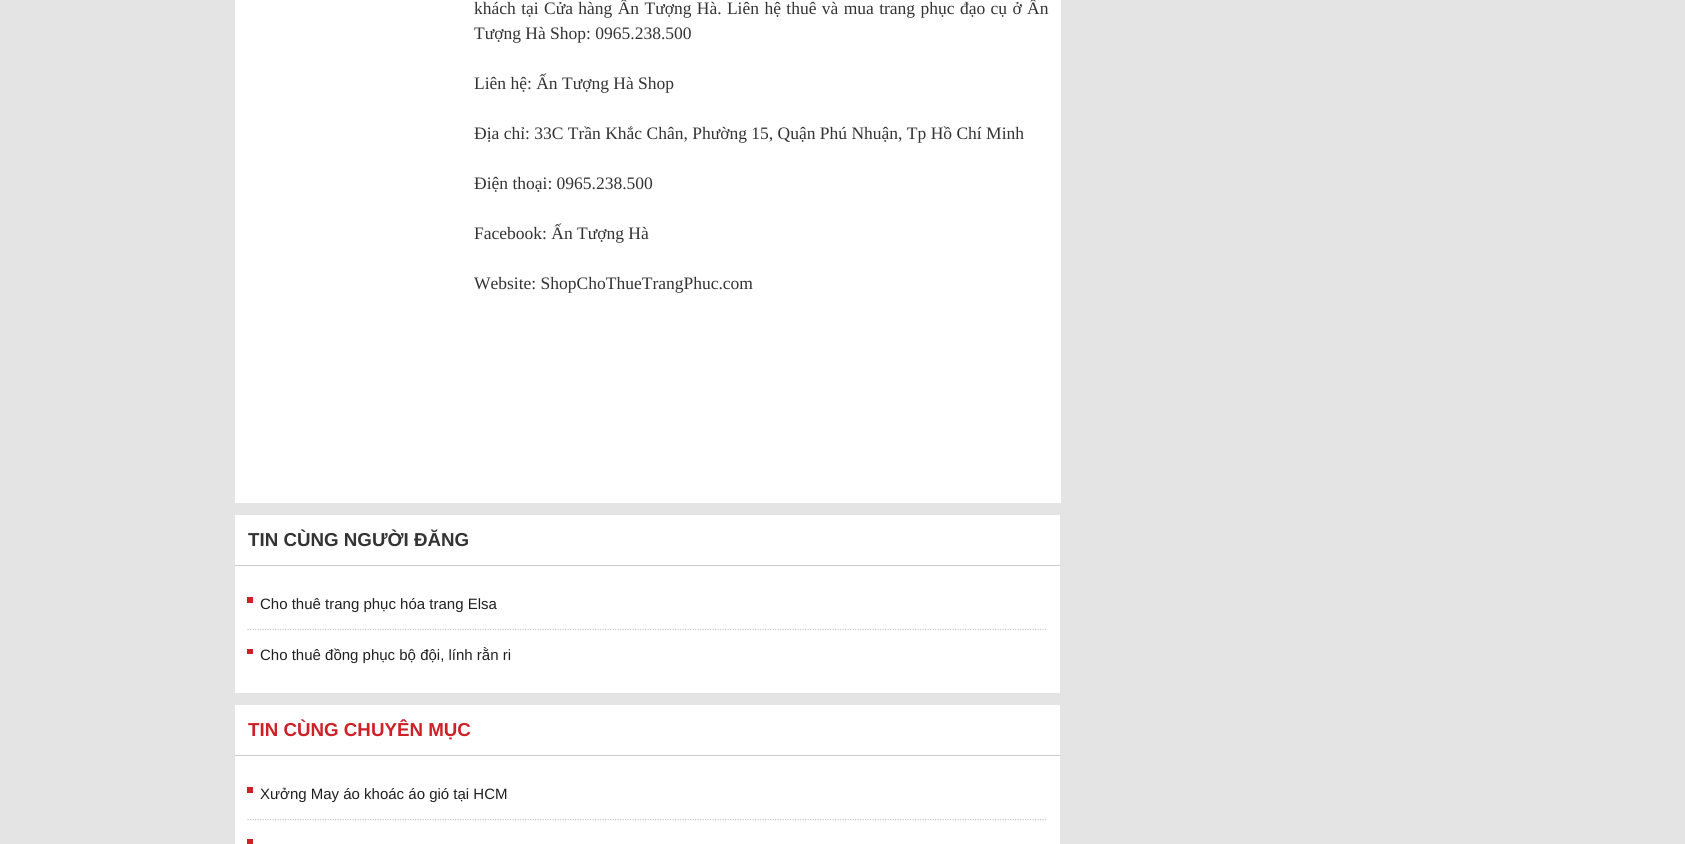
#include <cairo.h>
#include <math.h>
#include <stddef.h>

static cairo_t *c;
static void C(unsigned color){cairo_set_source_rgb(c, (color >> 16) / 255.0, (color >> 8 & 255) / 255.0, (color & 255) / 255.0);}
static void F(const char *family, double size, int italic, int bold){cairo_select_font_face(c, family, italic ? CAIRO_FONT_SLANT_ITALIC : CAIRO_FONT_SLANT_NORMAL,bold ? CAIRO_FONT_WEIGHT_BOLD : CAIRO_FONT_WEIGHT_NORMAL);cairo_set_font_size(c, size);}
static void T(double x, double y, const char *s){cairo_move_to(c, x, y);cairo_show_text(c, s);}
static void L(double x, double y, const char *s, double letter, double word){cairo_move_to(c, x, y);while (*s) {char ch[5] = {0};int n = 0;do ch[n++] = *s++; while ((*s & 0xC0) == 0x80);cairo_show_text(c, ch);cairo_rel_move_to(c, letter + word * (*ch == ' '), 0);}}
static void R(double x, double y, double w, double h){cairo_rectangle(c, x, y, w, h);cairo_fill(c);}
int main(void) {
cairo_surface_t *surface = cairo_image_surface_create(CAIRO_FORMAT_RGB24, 1685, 844);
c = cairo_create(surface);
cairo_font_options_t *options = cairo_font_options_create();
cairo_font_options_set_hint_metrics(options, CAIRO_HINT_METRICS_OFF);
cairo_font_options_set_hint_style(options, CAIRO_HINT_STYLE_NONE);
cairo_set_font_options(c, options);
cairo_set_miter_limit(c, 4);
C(0xe4e4e4);
cairo_paint(c);
C(0xffffff);
R(235,0,826,503);
F("Liberation Serif",17.5,0,0);
C(0x333333);
L(474,14,"khách tại Cửa hàng Ấn Tượng Hà. Liên hệ thuê và mua trang phục đạo cụ ở Ấn",0,1);
T(474,39,"Tượng Hà Shop: 0965.238.500");
T(474,89,"Liên hệ: Ấn Tượng Hà Shop");
T(474,139,"Địa chỉ: 33C Trần Khắc Chân, Phường 15, Quận Phú Nhuận, Tp Hồ Chí Minh");
T(474,189,"Điện thoại: 0965.238.500");
T(474,239,"Facebook: Ấn Tượng Hà");
T(474,289,"Website: ShopChoThueTrangPhuc.com");
C(0xffffff);
R(235,515,825,178);
C(0xcbcbcb);
R(235,565,825,1);
F("Liberation Sans",18.75,0,1);
C(0x333333);
T(248,546,"TIN CÙNG NGƯỜI ĐĂNG");
C(0xce2027);
R(247,597,6,6);
cairo_new_path(c);
cairo_move_to(c,247.5,629.5);
cairo_line_to(c,1047.5,629.5);
C(0xcbcbcb);
cairo_set_line_width(c,1.2);
cairo_set_dash(c,(double[]){1.25,1.25},2,0);
cairo_stroke(c);
F("Liberation Sans",15,0,0);
C(0x202020);
T(260,609,"Cho thuê trang phục hóa trang Elsa");
C(0xce2027);
R(247,649,6,5);
C(0x202020);
T(260,660,"Cho thuê đồng phục bộ đội, lính rằn ri");
C(0xffffff);
R(235,705,825,139);
C(0xcbcbcb);
R(235,755,825,1);
F("Liberation Sans",18.75,0,1);
C(0xce2027);
T(248,736,"TIN CÙNG CHUYÊN MỤC");
R(247,787,6,6);
cairo_new_path(c);
cairo_move_to(c,247.5,819.5);
cairo_line_to(c,1047.5,819.5);
C(0xcbcbcb);
cairo_stroke(c);
F("Liberation Sans",15,0,0);
C(0x202020);
T(260,799,"Xưởng May áo khoác áo gió tại HCM");
C(0xce2027);
R(247,839,6,5);
cairo_surface_write_to_png(surface, "o.png");
cairo_font_options_destroy(options);
cairo_destroy(c);
cairo_surface_destroy(surface);
return 0;
}
